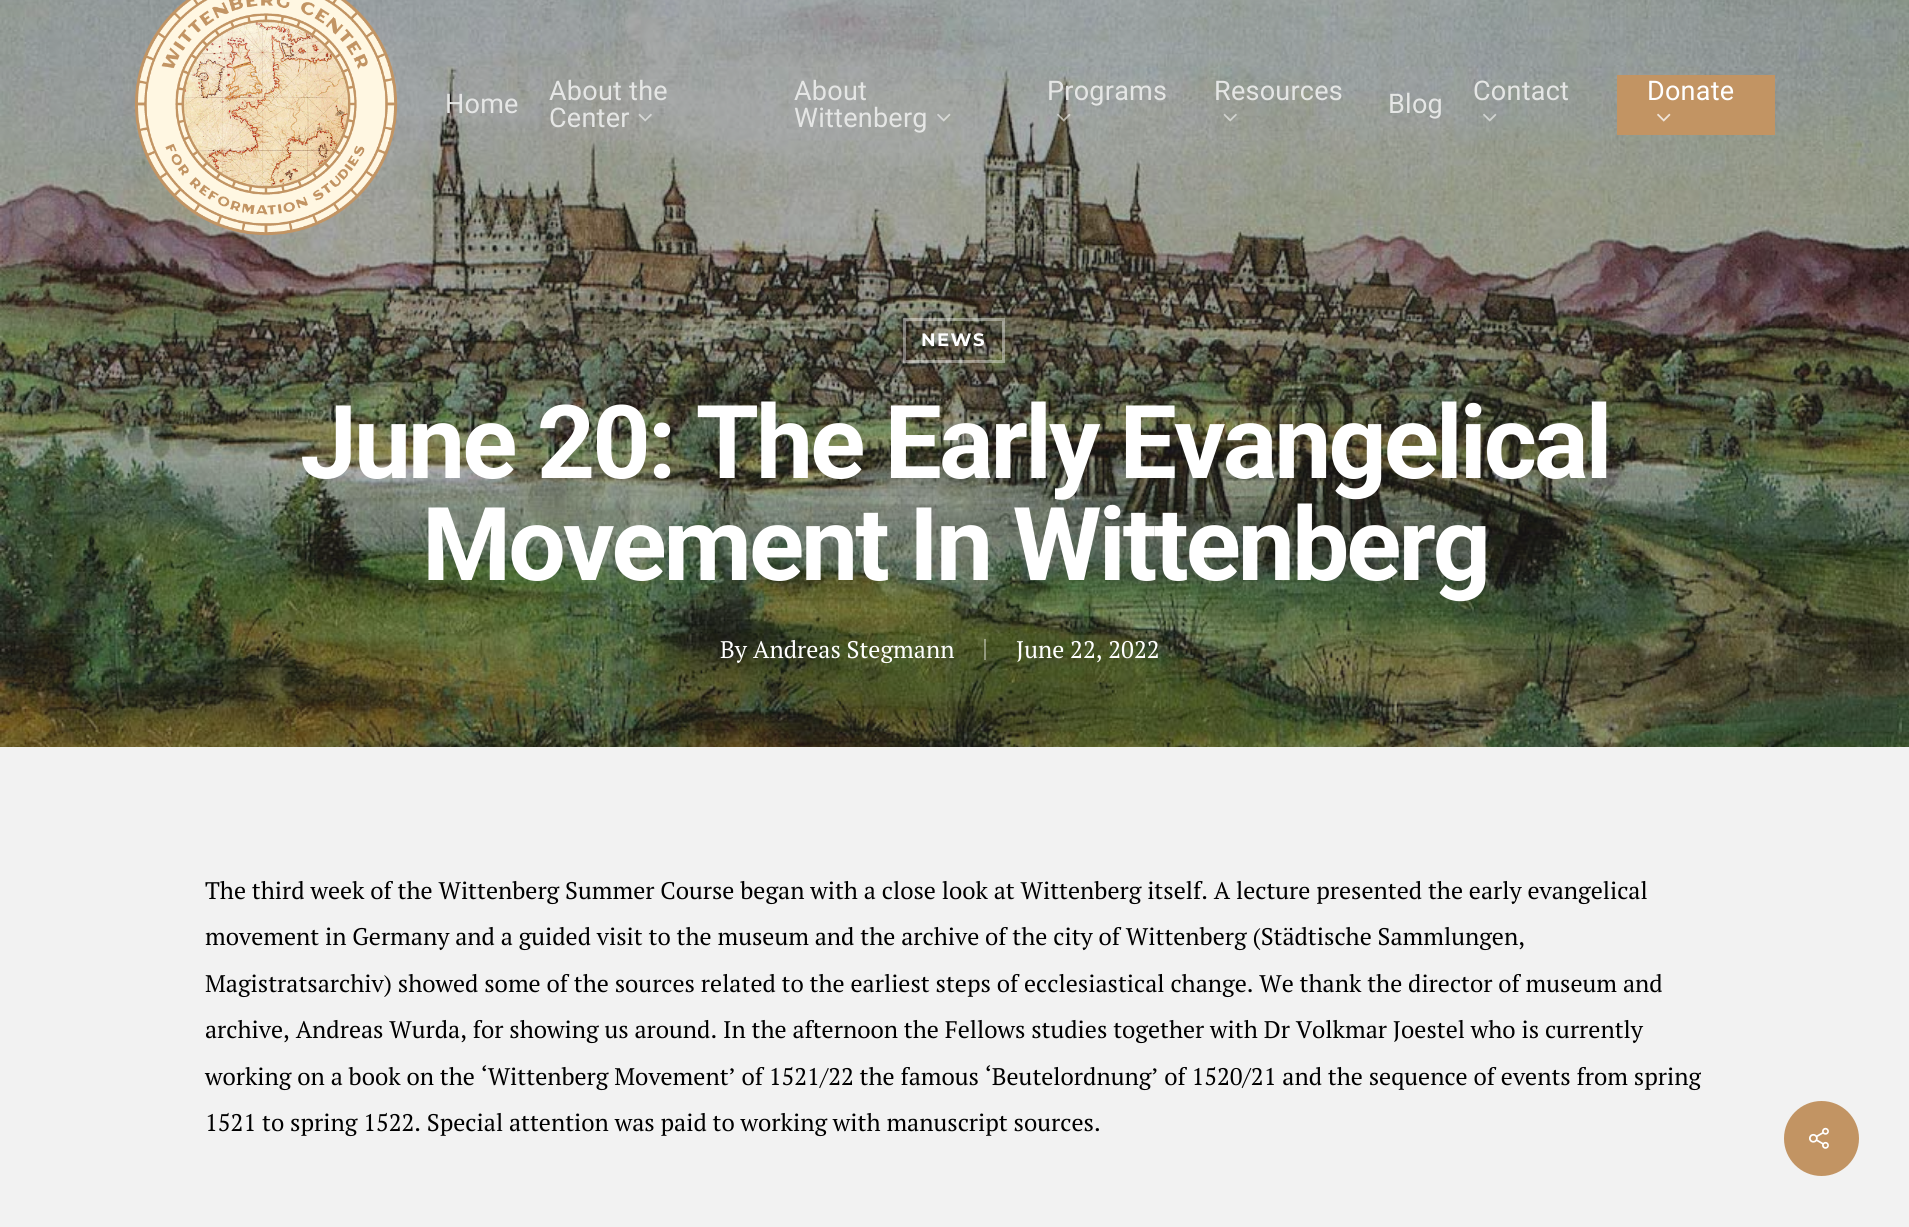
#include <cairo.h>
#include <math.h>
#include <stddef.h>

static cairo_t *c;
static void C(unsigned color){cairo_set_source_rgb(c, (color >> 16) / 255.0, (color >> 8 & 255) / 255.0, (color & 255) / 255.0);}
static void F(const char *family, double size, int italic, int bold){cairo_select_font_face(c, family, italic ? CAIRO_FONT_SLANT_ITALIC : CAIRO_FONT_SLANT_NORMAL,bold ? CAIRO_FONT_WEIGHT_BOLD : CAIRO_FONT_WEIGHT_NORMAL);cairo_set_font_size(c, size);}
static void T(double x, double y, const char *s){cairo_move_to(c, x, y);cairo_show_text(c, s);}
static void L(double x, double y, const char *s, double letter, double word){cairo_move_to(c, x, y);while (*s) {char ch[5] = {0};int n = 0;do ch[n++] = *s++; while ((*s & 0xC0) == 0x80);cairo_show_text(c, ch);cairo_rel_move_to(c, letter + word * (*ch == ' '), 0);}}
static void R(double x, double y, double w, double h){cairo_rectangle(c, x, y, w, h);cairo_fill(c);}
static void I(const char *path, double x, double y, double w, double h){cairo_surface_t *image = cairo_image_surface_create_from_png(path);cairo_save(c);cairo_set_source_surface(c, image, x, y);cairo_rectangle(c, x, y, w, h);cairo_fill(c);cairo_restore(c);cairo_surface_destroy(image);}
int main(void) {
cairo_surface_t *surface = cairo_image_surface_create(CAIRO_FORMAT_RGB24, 1909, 1227);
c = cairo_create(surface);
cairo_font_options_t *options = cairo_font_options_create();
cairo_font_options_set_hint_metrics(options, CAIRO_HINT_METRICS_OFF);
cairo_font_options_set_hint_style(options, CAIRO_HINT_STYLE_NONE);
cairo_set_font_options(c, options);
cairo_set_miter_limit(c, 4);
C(0xf2f2f2);
cairo_paint(c);
I("8.png",0,0,1909,747);
I("1.png",135,0,263,236);
F("Roboto",27,0,0);
C(0xe5e6e5);
L(445,113,"Home",.25,0);
L(549,100,"About the",.25,0);
L(549,127,"Center",.25,0);
I("2.png",638,113,14,9);
L(794,100,"About",.25,0);
L(794,127,"Wittenberg",.25,0);
I("3.png",937,113,14,9);
L(1047,100,"Programs",.25,0);
I("4.png",1057,113,14,9);
L(1214,100,"Resources",.25,0);
I("5.png",1223,113,14,9);
L(1388,113,"Blog",.25,0);
L(1473,100,"Contact",.25,0);
I("6.png",1483,113,14,9);
C(0xc29463);
R(1617,75,158,60);
C(0xffffff);
L(1647,100,"Donate",.25,0);
I("7.png",1657,113,14,9);
cairo_rectangle(c,904.5,319.5,99,42);
cairo_set_source_rgba(c,1,1,1,0.4);
cairo_set_line_width(c,3);
cairo_stroke(c);
F("Montserrat",18,0,1);
C(0xffffff);
L(921,346,"NEWS",1.5,0);
F("Roboto",102,0,1);
L(300,478,"June 20: The Early Evangelical",-3,0);
L(422,580,"Movement In Wittenberg",-3,0);
F("PT Serif",24,0,0);
T(720,658,"By");
T(753,658,"Andreas Stegmann");
cairo_set_source_rgba(c,1,1,1,0.4);
R(984,639,2,21);
C(0xffffff);
T(1016,658,"June 22, 2022");
C(0x000000);
T(205,899,"The third week of the Wittenberg Summer Course began with a close look at Wittenberg itself. A lecture presented the early evangelical");
T(205,945,"movement in Germany and a guided visit to the museum and the archive of the city of Wittenberg (Städtische Sammlungen,");
T(205,992,"Magistratsarchiv) showed some of the sources related to the earliest steps of ecclesiastical change. We thank the director of museum and");
T(205,1038,"archive, Andreas Wurda, for showing us around. In the afternoon the Fellows studies together with Dr Volkmar Joestel who is currently");
T(205,1085,"working on a book on the ‘Wittenberg Movement’ of 1521/22 the famous ‘Beutelordnung’ of 1520/21 and the sequence of events from spring");
T(205,1131,"1521 to spring 1522. Special attention was paid to working with manuscript sources.");
C(0xc29463);
cairo_new_path(c);
cairo_arc(c,1821.5,1138.5,37.5,0,2 * M_PI);
cairo_fill(c);
I("9.png",1809,1127,20,22);
cairo_surface_write_to_png(surface, "o.png");
cairo_font_options_destroy(options);
cairo_destroy(c);
cairo_surface_destroy(surface);
return 0;
}
